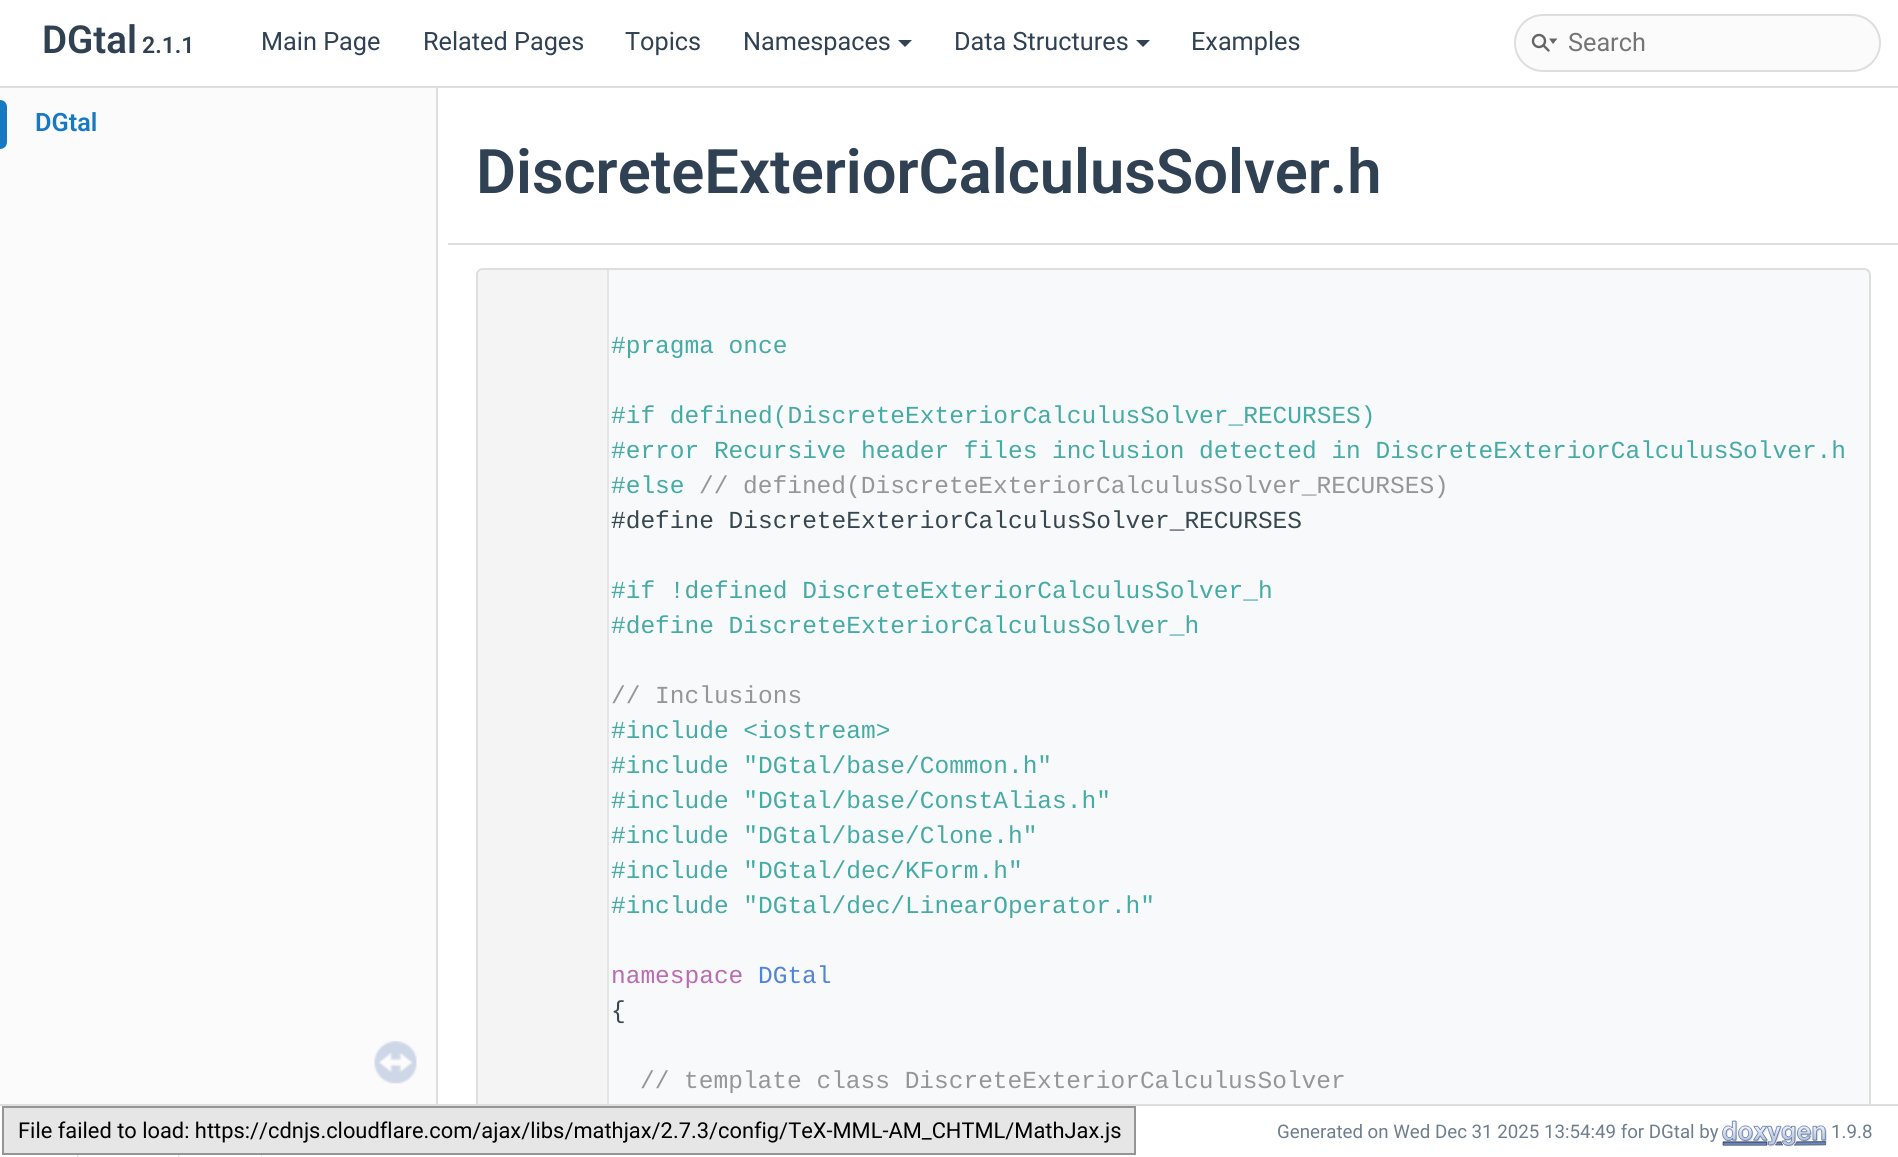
#include <cairo.h>
#include <math.h>
#include <stddef.h>

static cairo_t *c;
static void C(unsigned color){cairo_set_source_rgb(c, (color >> 16) / 255.0, (color >> 8 & 255) / 255.0, (color & 255) / 255.0);}
static void F(const char *family, double size, int italic, int bold){cairo_select_font_face(c, family, italic ? CAIRO_FONT_SLANT_ITALIC : CAIRO_FONT_SLANT_NORMAL,bold ? CAIRO_FONT_WEIGHT_BOLD : CAIRO_FONT_WEIGHT_NORMAL);cairo_set_font_size(c, size);}
static void T(double x, double y, const char *s){cairo_move_to(c, x, y);cairo_show_text(c, s);}
static void R(double x, double y, double w, double h){cairo_rectangle(c, x, y, w, h);cairo_fill(c);}
static void Q(double x, double y, double w, double h, double r){cairo_new_sub_path(c);cairo_arc(c, x + w - r, y + h - r, r, 0, M_PI / 2);cairo_arc(c, x + r, y + h - r, r, M_PI / 2, M_PI);cairo_arc(c, x + r, y + r, r, M_PI, 1.5 * M_PI);cairo_arc(c, x + w - r, y + r, r, 1.5 * M_PI, 2 * M_PI);cairo_close_path(c);}
static void I(const char *path, double x, double y, double w, double h){cairo_surface_t *image = cairo_image_surface_create_from_png(path);cairo_save(c);cairo_set_source_surface(c, image, x, y);cairo_rectangle(c, x, y, w, h);cairo_fill(c);cairo_restore(c);cairo_surface_destroy(image);}
int main(void) {
cairo_surface_t *surface = cairo_image_surface_create(CAIRO_FORMAT_RGB24, 1898, 1157);
c = cairo_create(surface);
cairo_font_options_t *options = cairo_font_options_create();
cairo_font_options_set_hint_metrics(options, CAIRO_HINT_METRICS_OFF);
cairo_font_options_set_hint_style(options, CAIRO_HINT_STYLE_NONE);
cairo_set_font_options(c, options);
cairo_set_miter_limit(c, 4);
C(0xffffff);
cairo_paint(c);
C(0xdedede);
R(0,86,1898,2);
F("Roboto SemiBold",38.5,0,0);
C(0x2f4153);
T(42,53,"DGtal");
F("Roboto SemiBold",23,0,0);
T(142,53,"2.1.1");
F("Roboto",25.25,0,0);
T(261,50,"Main Page");
T(423,50,"Related Pages");
T(625,50,"Topics");
T(743,50,"Namespaces");
cairo_new_path(c);
cairo_move_to(c,898,40);
cairo_line_to(c,912,40);
cairo_line_to(c,905,47);
cairo_close_path(c);
cairo_fill(c);
T(954,50,"Data Structures");
cairo_new_path(c);
cairo_move_to(c,1136,40);
cairo_line_to(c,1150,40);
cairo_line_to(c,1143,47);
cairo_close_path(c);
cairo_fill(c);
T(1191,50,"Examples");
C(0xfbfbfb);
Q(1515,15,365,56,28);
cairo_fill_preserve(c);
C(0xdedede);
cairo_stroke(c);
cairo_arc(c,1539,41,6,0,2 * M_PI);
C(0x656565);
cairo_set_line_width(c,2.4);
cairo_stroke(c);
cairo_new_path(c);
cairo_move_to(c,1549,38.5);
cairo_line_to(c,1553,44);
cairo_line_to(c,1557.5,38.5);
cairo_close_path(c);
cairo_fill(c);
cairo_new_path(c);
cairo_move_to(c,1543.5,45.5);
cairo_line_to(c,1548.5,50.5);
cairo_set_line_cap(c,CAIRO_LINE_CAP_ROUND);
cairo_stroke(c);
C(0x757575);
T(1568,51,"Search");
C(0xfbfbfb);
R(0,88,436,1016);
C(0x1779c4);
cairo_new_path(c);
cairo_move_to(c,0,100);
cairo_curve_to(c,4,100,7,103,7,107);
cairo_line_to(c,7,142);
cairo_curve_to(c,7,146,4,149,0,149);
cairo_close_path(c);
cairo_fill(c);
F("Roboto SemiBold",25.25,0,0);
T(35,131,"DGtal");
I("1.png",374,1041,43,43);
C(0xdedede);
R(436,88,2,1016);
R(448,243,1450,2);
F("Roboto SemiBold",61.4,0,0);
C(0x2f4153);
T(476,193,"DiscreteExteriorCalculusSolver.h");
C(0xf8f9fa);
cairo_new_path(c);
cairo_move_to(c,483,268);
cairo_line_to(c,1864,268);
cairo_curve_to(c,1868,268,1871,271,1871,275);
cairo_line_to(c,1871,1104);
cairo_line_to(c,476,1104);
cairo_line_to(c,476,275);
cairo_curve_to(c,476,271,479,268,483,268);
cairo_close_path(c);
cairo_fill(c);
cairo_save(c);
cairo_rectangle(c,448,88,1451,1016);
cairo_clip(c);
Q(477,269,1393,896,6);
C(0xdedede);
cairo_set_line_width(c,2);
cairo_set_line_cap(c,CAIRO_LINE_CAP_BUTT);
cairo_stroke(c);
C(0xe3e5e7);
cairo_set_fill_rule(c,CAIRO_FILL_RULE_EVEN_ODD);
cairo_new_path(c);
cairo_move_to(c,483,270);
cairo_curve_to(c,480,270,478,272,478,275);
cairo_line_to(c,478,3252);
cairo_curve_to(c,478,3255,480,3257,483,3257);
cairo_line_to(c,609,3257);
cairo_line_to(c,609,270);
cairo_close_path(c);
cairo_move_to(c,506,1132);
cairo_line_to(c,506,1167);
cairo_line_to(c,607,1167);
cairo_line_to(c,607,1132);
cairo_close_path(c);
cairo_fill(c);
C(0xf4f4f5);
cairo_set_fill_rule(c,CAIRO_FILL_RULE_WINDING);
cairo_new_path(c);
cairo_move_to(c,483,270);
cairo_curve_to(c,480,270,478,272,478,275);
cairo_line_to(c,478,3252);
cairo_curve_to(c,478,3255,480,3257,483,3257);
cairo_line_to(c,607,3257);
cairo_line_to(c,607,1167);
cairo_line_to(c,506,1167);
cairo_line_to(c,506,1132);
cairo_line_to(c,607,1132);
cairo_line_to(c,607,270);
cairo_close_path(c);
cairo_fill(c);
cairo_restore(c);
F("Liberation Mono",24.5,0,0);
C(0x46aaa5);
T(611,353,"#pragma once");
T(611,423,"#if defined(DiscreteExteriorCalculusSolver_RECURSES)");
T(611,458,"#error Recursive header files inclusion detected in DiscreteExteriorCalculusSolver.h");
T(611,493,"#else");
C(0x969696);
T(699,493,"// defined(DiscreteExteriorCalculusSolver_RECURSES)");
C(0x37474f);
T(611,528,"#define DiscreteExteriorCalculusSolver_RECURSES");
C(0x46aaa5);
T(611,598,"#if !defined DiscreteExteriorCalculusSolver_h");
T(611,633,"#define DiscreteExteriorCalculusSolver_h");
C(0x969696);
T(611,703,"// Inclusions");
C(0x46aaa5);
T(611,738,"#include <iostream>");
T(611,773,"#include \"DGtal/base/Common.h\"");
T(611,808,"#include \"DGtal/base/ConstAlias.h\"");
T(611,843,"#include \"DGtal/base/Clone.h\"");
T(611,878,"#include \"DGtal/dec/KForm.h\"");
T(611,913,"#include \"DGtal/dec/LinearOperator.h\"");
C(0xbb6bb2);
T(611,983,"namespace");
C(0x5383d6);
T(758,983,"DGtal");
C(0x37474f);
T(611,1018,"{");
C(0x969696);
T(640,1088,"// template class DiscreteExteriorCalculusSolver");
C(0xdedede);
cairo_new_path(c);
cairo_move_to(c,77,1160);
cairo_line_to(c,77,1104);
cairo_line_to(c,86,1132);
cairo_close_path(c);
cairo_fill(c);
cairo_save(c);
cairo_rectangle(c,0,1106,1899,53);
cairo_clip(c);
C(0xffffff);
cairo_new_path(c);
cairo_move_to(c,74,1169);
cairo_line_to(c,74,1096);
cairo_line_to(c,82,1132);
cairo_close_path(c);
cairo_fill(c);
cairo_restore(c);
cairo_new_path(c);
cairo_move_to(c,178,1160);
cairo_line_to(c,178,1104);
cairo_line_to(c,187,1132);
cairo_close_path(c);
cairo_fill(c);
cairo_save(c);
cairo_rectangle(c,0,1106,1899,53);
cairo_clip(c);
C(0xffffff);
cairo_new_path(c);
cairo_move_to(c,175,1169);
cairo_line_to(c,175,1096);
cairo_line_to(c,184,1132);
cairo_close_path(c);
cairo_fill(c);
C(0xdedede);
cairo_new_path(c);
cairo_move_to(c,261,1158);
cairo_line_to(c,261,1102);
cairo_line_to(c,270,1130);
cairo_close_path(c);
cairo_fill(c);
C(0xffffff);
cairo_new_path(c);
cairo_move_to(c,257,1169);
cairo_line_to(c,257,1096);
cairo_line_to(c,266,1132);
cairo_close_path(c);
cairo_fill(c);
cairo_restore(c);
C(0xe6e6e6);
cairo_rectangle(c,3,1107,1132,47);
cairo_fill_preserve(c);
C(0x959595);
cairo_set_line_width(c,2);
cairo_set_line_cap(c,CAIRO_LINE_CAP_BUTT);
cairo_stroke(c);
F("Roboto",21.85,0,0);
C(0x000000);
T(18,1138,"File failed to load: https://cdnjs.cloudflare.com/ajax/libs/mathjax/2.7.3/config/TeX-MML-AM_CHTML/MathJax.js");
C(0xdedede);
R(0,1104,1898,2);
F("Roboto",18.7,0,0);
C(0x6f7e8e);
T(1277,1138,"Generated on Wed Dec 31 2025 13:54:49 for DGtal by");
I("2.png",1722,1120,105,27);
T(1831,1138,"1.9.8");
cairo_surface_write_to_png(surface, "o.png");
cairo_font_options_destroy(options);
cairo_destroy(c);
cairo_surface_destroy(surface);
return 0;
}
